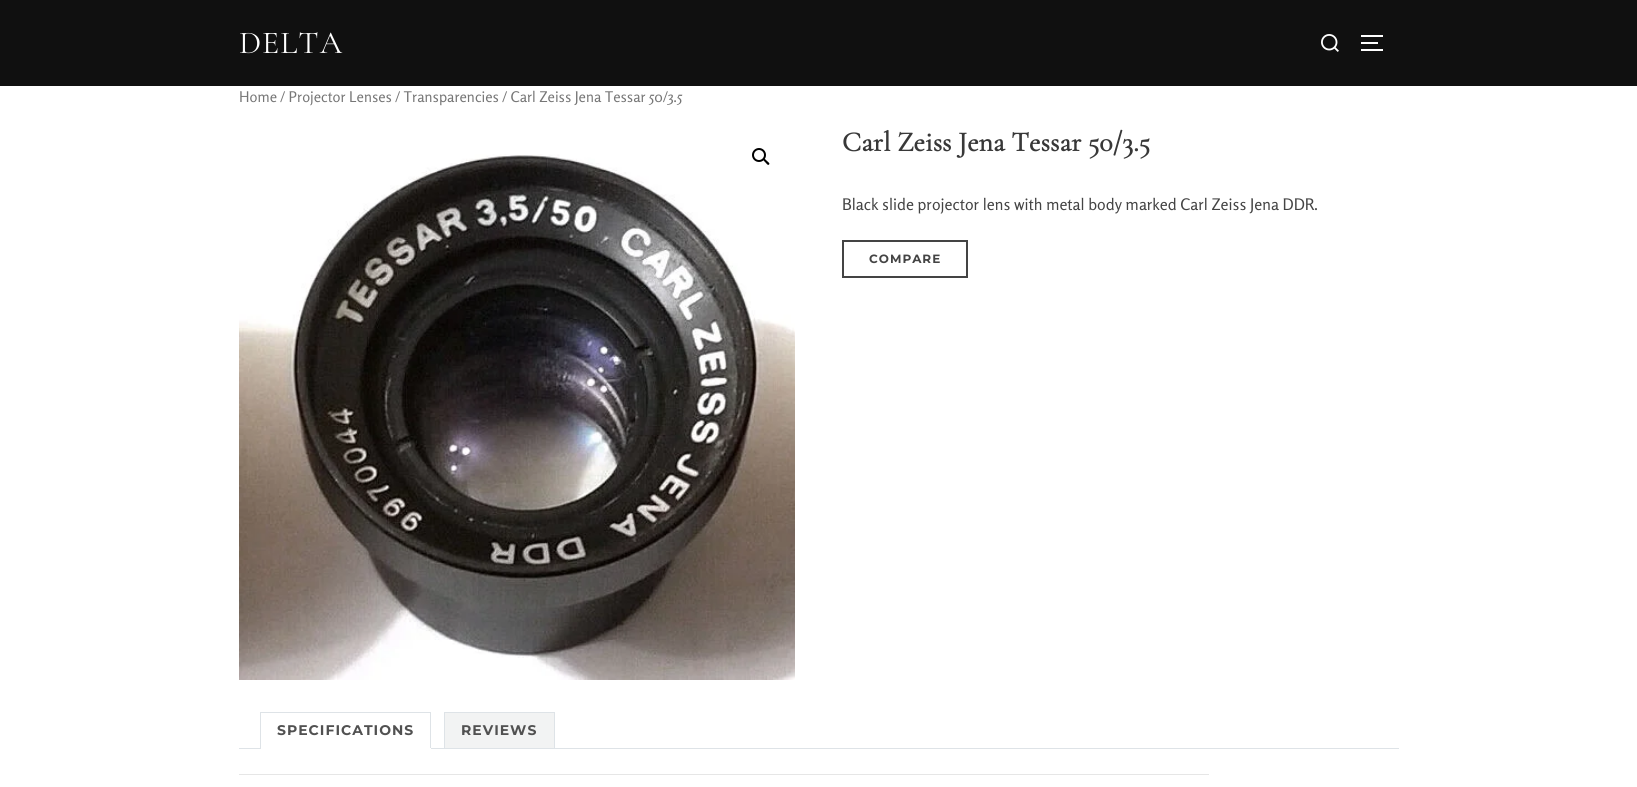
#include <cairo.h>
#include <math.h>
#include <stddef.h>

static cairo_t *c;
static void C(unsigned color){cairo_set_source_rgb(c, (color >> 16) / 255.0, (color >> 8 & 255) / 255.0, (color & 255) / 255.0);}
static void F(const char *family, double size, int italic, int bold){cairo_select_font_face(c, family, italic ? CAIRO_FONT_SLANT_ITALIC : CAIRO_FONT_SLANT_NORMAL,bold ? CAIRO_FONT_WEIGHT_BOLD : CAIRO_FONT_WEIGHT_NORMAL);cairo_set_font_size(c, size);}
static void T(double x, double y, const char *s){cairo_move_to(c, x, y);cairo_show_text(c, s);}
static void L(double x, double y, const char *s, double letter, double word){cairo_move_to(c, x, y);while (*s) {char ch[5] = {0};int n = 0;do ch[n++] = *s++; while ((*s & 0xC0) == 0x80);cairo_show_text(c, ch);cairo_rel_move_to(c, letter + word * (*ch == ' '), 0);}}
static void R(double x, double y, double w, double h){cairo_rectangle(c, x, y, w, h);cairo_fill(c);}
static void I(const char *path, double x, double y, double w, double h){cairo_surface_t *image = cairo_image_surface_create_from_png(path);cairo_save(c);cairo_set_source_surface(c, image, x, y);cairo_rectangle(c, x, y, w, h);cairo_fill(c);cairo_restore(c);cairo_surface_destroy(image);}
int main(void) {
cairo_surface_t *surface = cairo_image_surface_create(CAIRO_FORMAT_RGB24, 1637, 787);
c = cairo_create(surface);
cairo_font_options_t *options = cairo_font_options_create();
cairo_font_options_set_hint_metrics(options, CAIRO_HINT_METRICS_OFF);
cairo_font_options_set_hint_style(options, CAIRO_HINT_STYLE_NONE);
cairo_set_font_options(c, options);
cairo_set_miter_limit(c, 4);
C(0xffffff);
cairo_paint(c);
C(0x101010);
R(0,0,1637,86);
F("Cormorant Garamond",32,0,0);
C(0xffffff);
L(239,53,"DELTA",1,0);
I("1.png",1321,34,18,18);
R(1361,35,22,2);
R(1361,42,17,2);
R(1361,49,22,2);
F("Rosario",14.75,0,0);
C(0x767676);
T(239,102,"Home / Projector Lenses / Transparencies / Carl Zeiss Jena Tessar 50/3.5");
I("2.png",239,154,556,526);
cairo_arc(c,759,155,6,0,2 * M_PI);
C(0x000000);
cairo_stroke(c);
cairo_new_path(c);
cairo_move_to(c,763.5,159);
cairo_curve_to(c,764.5,158,766.5,160.5,767,161);
cairo_curve_to(c,767.5,161.5,770.5,163.5,769,164.5);
cairo_curve_to(c,768,166,766,163,765.5,162.5);
cairo_curve_to(c,765,162,762.5,160,763.5,159);
cairo_close_path(c);
cairo_fill(c);
F("Cormorant Garamond",28,0,1);
C(0x383838);
T(842,151,"Carl Zeiss Jena Tessar 50/3.5");
F("Rosario",16,0,0);
C(0x444444);
T(842,210,"Black slide projector lens with metal body marked Carl Zeiss Jena DDR.");
cairo_rectangle(c,843,241,124,36);
cairo_stroke(c);
F("Montserrat Thin",12,0,0);
L(869,263,"COMPARE",1,0);
C(0xdee3e7);
R(260,712,171,1);
C(0xf2f3f3);
cairo_rectangle(c,444.5,712.5,110,36);
cairo_fill_preserve(c);
C(0xdee3e7);
cairo_set_line_width(c,1);
cairo_stroke(c);
R(239,748,1160,1);
R(430,712,1,37);
C(0xffffff);
R(260,748,171,1);
C(0xdee3e7);
R(260,712,1,37);
F("Montserrat Thin",14,0,0);
C(0x515151);
L(277,735,"SPECIFICATIONS",1,0);
L(461,735,"REVIEWS",1,0);
C(0xe6e6e6);
R(239,774,970,1);
cairo_surface_write_to_png(surface, "o.png");
cairo_font_options_destroy(options);
cairo_destroy(c);
cairo_surface_destroy(surface);
return 0;
}
